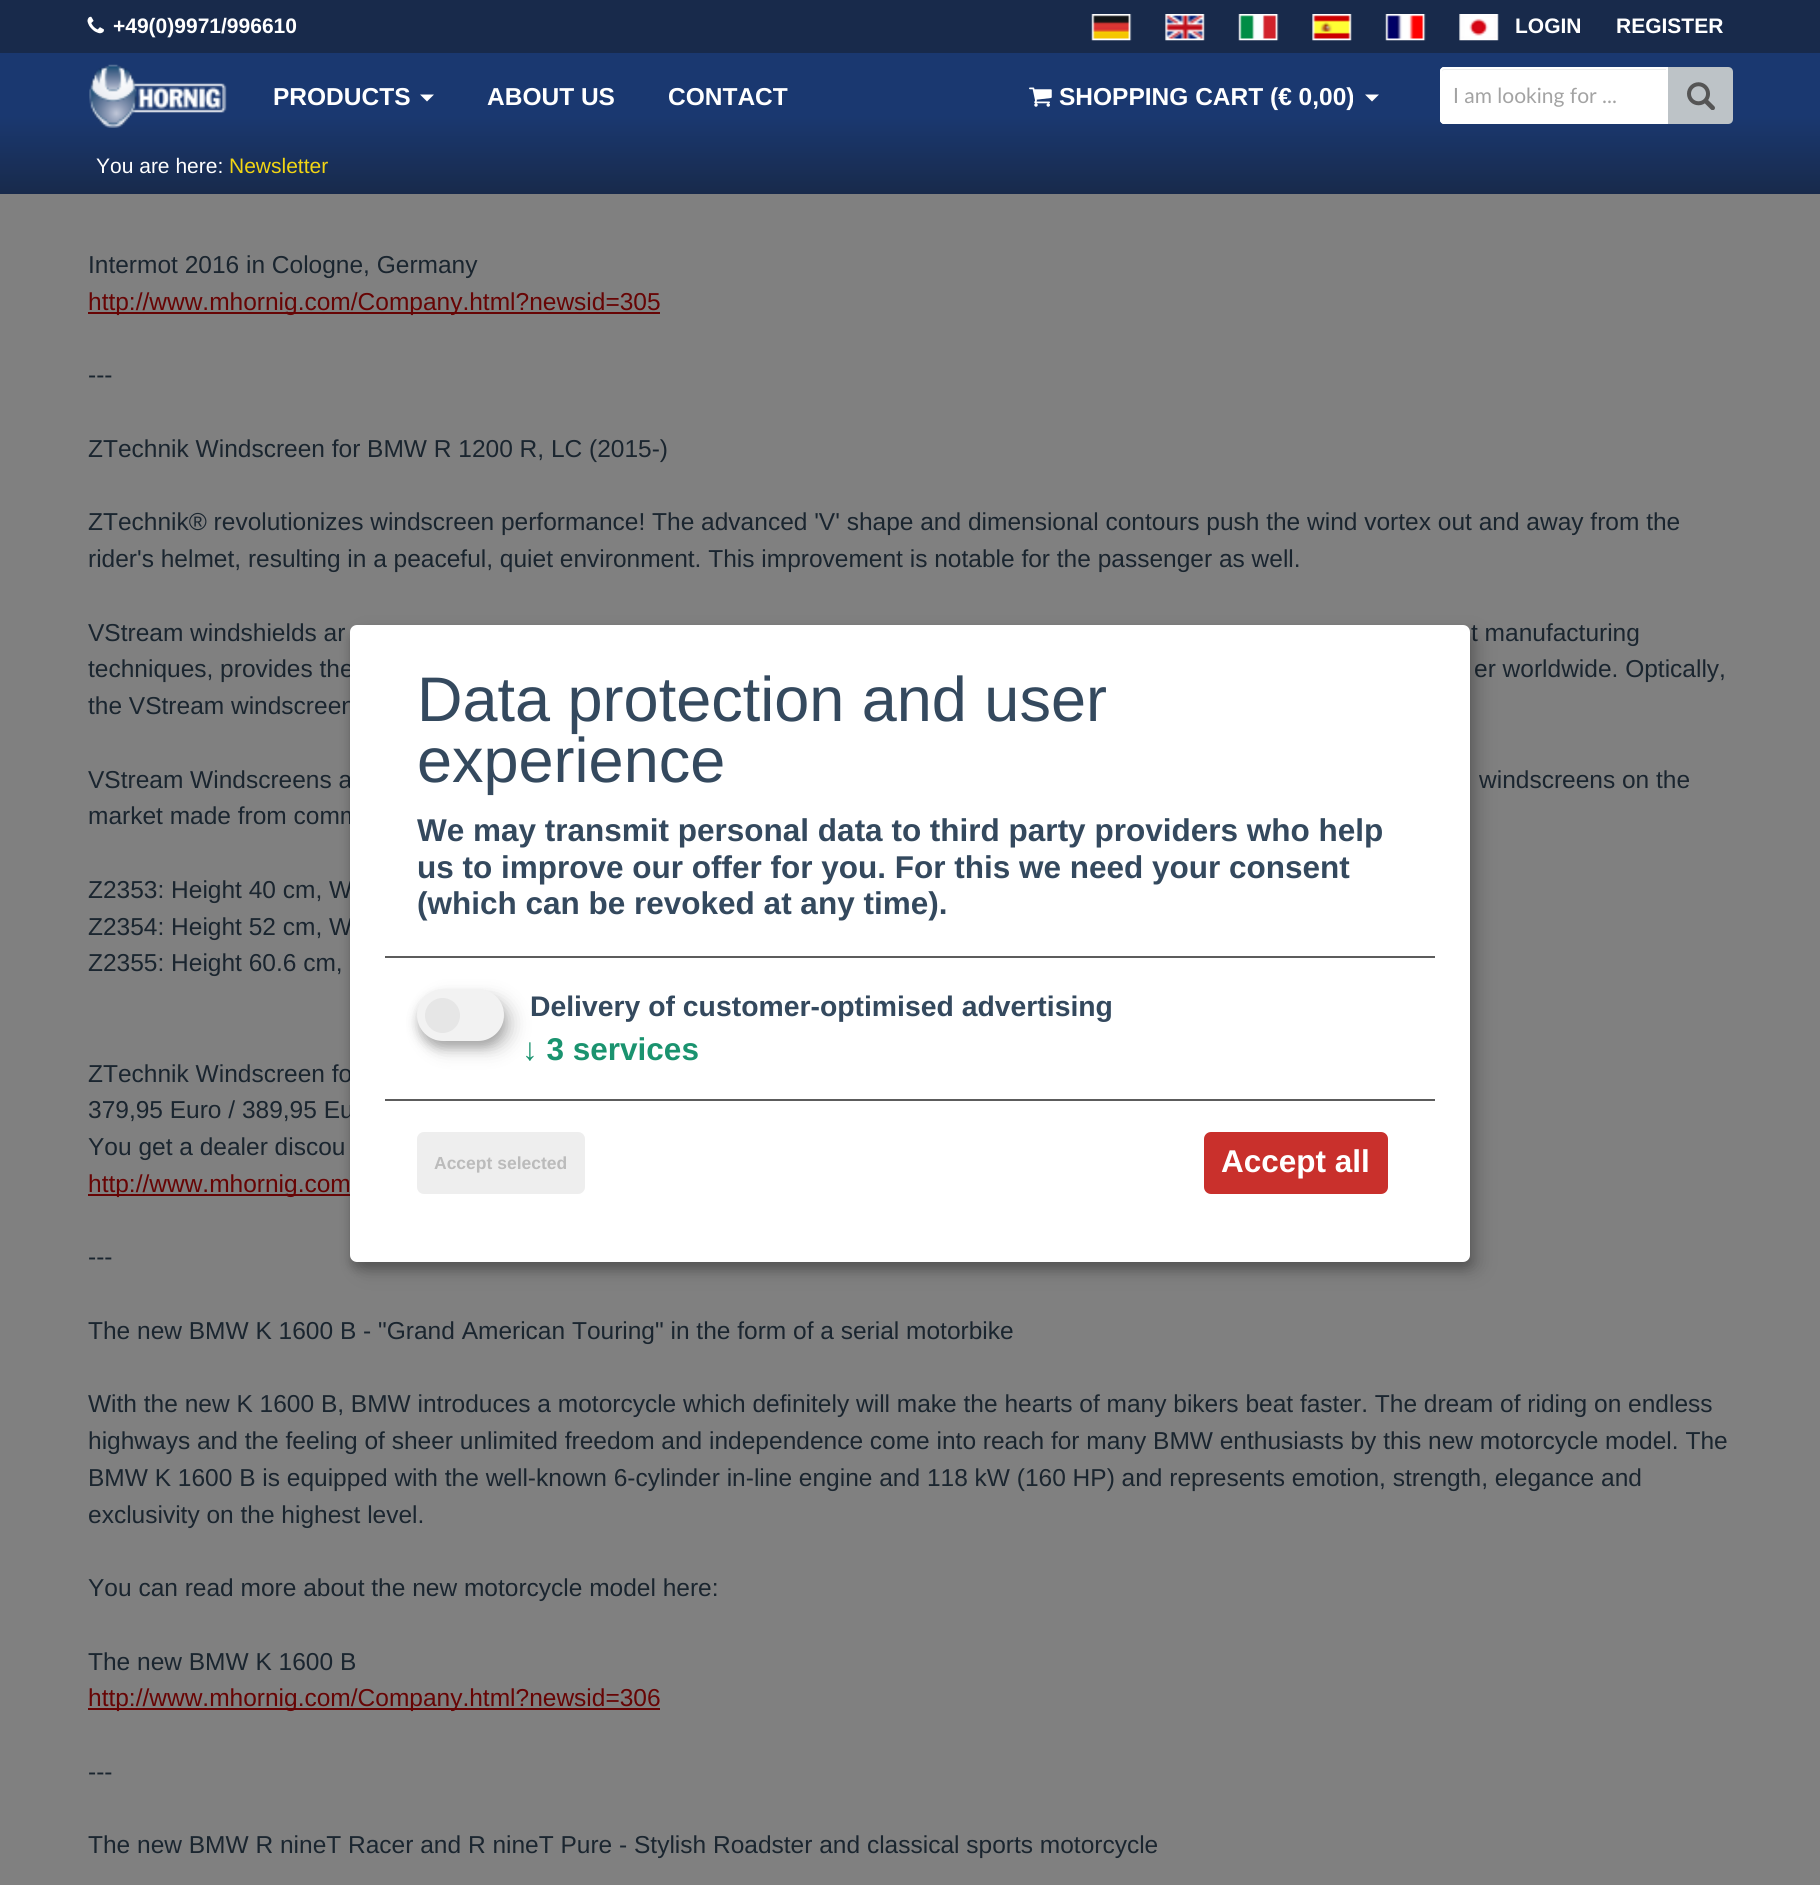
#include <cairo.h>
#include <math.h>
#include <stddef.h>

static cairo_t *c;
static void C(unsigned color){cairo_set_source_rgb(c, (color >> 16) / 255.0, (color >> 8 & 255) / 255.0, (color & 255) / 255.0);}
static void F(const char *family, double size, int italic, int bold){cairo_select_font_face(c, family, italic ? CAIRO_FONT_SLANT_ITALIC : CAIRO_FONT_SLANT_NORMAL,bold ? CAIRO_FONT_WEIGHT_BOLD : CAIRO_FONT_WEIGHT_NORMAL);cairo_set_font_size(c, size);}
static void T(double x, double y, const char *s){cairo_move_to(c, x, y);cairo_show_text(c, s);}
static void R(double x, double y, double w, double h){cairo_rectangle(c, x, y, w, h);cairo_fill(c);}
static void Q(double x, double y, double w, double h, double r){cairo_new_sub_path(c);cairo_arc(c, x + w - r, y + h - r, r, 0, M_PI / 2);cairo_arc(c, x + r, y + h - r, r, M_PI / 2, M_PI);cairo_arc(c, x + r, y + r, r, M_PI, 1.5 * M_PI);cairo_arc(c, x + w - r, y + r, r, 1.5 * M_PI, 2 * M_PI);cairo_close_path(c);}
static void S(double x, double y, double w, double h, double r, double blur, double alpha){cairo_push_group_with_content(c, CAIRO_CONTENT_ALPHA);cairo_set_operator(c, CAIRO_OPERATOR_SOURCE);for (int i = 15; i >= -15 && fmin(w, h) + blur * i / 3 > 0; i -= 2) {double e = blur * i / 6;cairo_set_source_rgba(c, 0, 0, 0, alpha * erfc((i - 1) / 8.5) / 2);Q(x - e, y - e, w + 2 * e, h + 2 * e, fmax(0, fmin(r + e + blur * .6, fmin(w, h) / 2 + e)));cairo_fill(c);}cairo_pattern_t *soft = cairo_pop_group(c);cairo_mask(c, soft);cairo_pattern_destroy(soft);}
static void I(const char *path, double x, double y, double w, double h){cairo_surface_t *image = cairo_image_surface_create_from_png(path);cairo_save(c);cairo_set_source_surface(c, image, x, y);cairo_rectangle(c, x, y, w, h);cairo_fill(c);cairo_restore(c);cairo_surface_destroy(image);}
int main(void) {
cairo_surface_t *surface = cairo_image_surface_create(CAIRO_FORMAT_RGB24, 1820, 1885);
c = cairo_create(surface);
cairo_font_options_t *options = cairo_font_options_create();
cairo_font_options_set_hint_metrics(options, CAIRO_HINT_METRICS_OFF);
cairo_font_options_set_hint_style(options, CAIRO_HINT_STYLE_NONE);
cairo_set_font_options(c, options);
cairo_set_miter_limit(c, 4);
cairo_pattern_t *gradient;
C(0x808080);
cairo_paint(c);
gradient = cairo_pattern_create_linear(910,0,910,194);
cairo_pattern_add_color_stop_rgba(gradient,.6,0.102,0.22,0.439,1);
cairo_pattern_add_color_stop_rgba(gradient,1,0.094,0.165,0.294,1);
cairo_set_source(c,gradient);
cairo_pattern_destroy(gradient);
R(0,53,1820,141);
C(0x182a4b);
R(0,0,1820,53);
I("1.png",87,16,17,18);
F("Liberation Sans",21,0,1);
C(0xffffff);
T(113,33,"+49(0)9971/996610");
I("2.png",1091,14,41,27);
I("3.png",1165,14,40,27);
I("4.png",1238,14,41,27);
I("5.png",1312,14,40,27);
I("6.png",1385,14,41,27);
I("7.png",1459,14,40,27);
T(1515,33,"LOGIN");
T(1616,33,"REGISTER");
I("8.png",89,64,138,64);
F("Liberation Sans",24.5,0,1);
T(273,105,"PRODUCTS");
cairo_new_path(c);
cairo_move_to(c,420,94.5);
cairo_line_to(c,434,94.5);
cairo_line_to(c,427,101.5);
cairo_close_path(c);
cairo_fill(c);
T(487,105,"ABOUT US");
T(668,105,"CONTACT");
I("9.png",1029,87,23,20);
T(1059,105,"SHOPPING CART (€ 0,00)");
cairo_new_path(c);
cairo_move_to(c,1365,94.5);
cairo_line_to(c,1379,94.5);
cairo_line_to(c,1372,101.5);
cairo_close_path(c);
cairo_fill(c);
cairo_new_path(c);
cairo_move_to(c,1444,67);
cairo_line_to(c,1668,67);
cairo_line_to(c,1668,124);
cairo_line_to(c,1444,124);
cairo_curve_to(c,1442,124,1440,122,1440,120);
cairo_line_to(c,1440,71);
cairo_curve_to(c,1440,69,1442,67,1444,67);
cairo_close_path(c);
cairo_fill(c);
C(0xececec);
cairo_new_path(c);
cairo_move_to(c,1444,70);
cairo_line_to(c,1666,70);
cairo_line_to(c,1666,68);
cairo_line_to(c,1444,68);
cairo_curve_to(c,1442,68,1442,71,1442,72);
cairo_curve_to(c,1442,71,1443,70,1444,70);
cairo_close_path(c);
cairo_fill(c);
cairo_new_path(c);
cairo_move_to(c,1444,68);
cairo_line_to(c,1667,68);
cairo_line_to(c,1667,123);
cairo_line_to(c,1444,123);
cairo_curve_to(c,1442.5,123,1441,121.5,1441,120);
cairo_line_to(c,1441,71);
cairo_curve_to(c,1441,69.5,1442.5,68,1444,68);
cairo_close_path(c);
C(0xffffff);
cairo_stroke(c);
F("Lato",21,0,0);
C(0xa3a3a3);
T(1453,103,"I am looking for ...");
C(0xbdc3c7);
cairo_new_path(c);
cairo_move_to(c,1668,67);
cairo_line_to(c,1728,67);
cairo_curve_to(c,1731,67,1733,69,1733,72);
cairo_line_to(c,1733,119);
cairo_curve_to(c,1733,122,1731,124,1728,124);
cairo_line_to(c,1668,124);
cairo_close_path(c);
cairo_fill(c);
I("10.png",1687,82,28,28);
F("Liberation Sans",21,0,0);
C(0xffffff);
T(96,173,"You are here:");
C(0xf2d513);
T(229,173,"Newsletter");
F("Liberation Sans",24.5,0,0);
C(0x1a252f);
T(88,273,"Intermot 2016 in Cologne, Germany");
C(0x670404);
R(88,312,572,2);
T(88,310,"http://www.mhornig.com/Company.html?newsid=305");
C(0x1a252f);
T(88,383,"---");
T(88,457,"ZTechnik Windscreen for BMW R 1200 R, LC (2015-)");
T(88,530,"ZTechnik® revolutionizes windscreen performance! The advanced 'V' shape and dimensional contours push the wind vortex out and away from the");
T(88,567,"rider's helmet, resulting in a peaceful, quiet environment. This improvement is notable for the passenger as well.");
T(88,641,"VStream windshields ar");
T(1471,641,"t manufacturing");
T(88,677,"techniques, provides the");
T(1474,677,"er worldwide. Optically,");
T(88,714,"the VStream windscreen");
T(88,788,"VStream Windscreens a");
T(1479,788,"windscreens on the");
T(88,824,"market made from comm");
T(88,898,"Z2353: Height 40 cm, W");
T(88,935,"Z2354: Height 52 cm, W");
T(88,971,"Z2355: Height 60.6 cm,");
T(88,1082,"ZTechnik Windscreen fo");
T(88,1118,"379,95 Euro / 389,95 Eu");
T(88,1155,"You get a dealer discou");
C(0x670404);
R(88,1194,262,2);
T(88,1192,"http://www.mhornig.com");
C(0x1a252f);
T(88,1265,"---");
T(88,1339,"The new BMW K 1600 B - \"Grand American Touring\" in the form of a serial motorbike");
T(88,1412,"With the new K 1600 B, BMW introduces a motorcycle which definitely will make the hearts of many bikers beat faster. The dream of riding on endless");
T(88,1449,"highways and the feeling of sheer unlimited freedom and independence come into reach for many BMW enthusiasts by this new motorcycle model. The");
T(88,1486,"BMW K 1600 B is equipped with the well-known 6-cylinder in-line engine and 118 kW (160 HP) and represents emotion, strength, elegance and");
T(88,1523,"exclusivity on the highest level.");
T(88,1596,"You can read more about the new motorcycle model here:");
T(88,1670,"The new BMW K 1600 B");
C(0x670404);
R(88,1708,572,2);
T(88,1706,"http://www.mhornig.com/Company.html?newsid=306");
C(0x1a252f);
T(88,1780,"---");
T(88,1853,"The new BMW R nineT Racer and R nineT Pure - Stylish Roadster and classical sports motorcycle");
C(0x000000);
S(359,634,1120,637,7,9,.19);
S(350,632,1120,637,7,5,.2);
C(0xffffff);
Q(350,625,1120,637,7);
cairo_fill(c);
C(0x5c5c5c);
R(385,956,1050,2);
F("Liberation Sans",63,0,0);
C(0x34495e);
T(417,721,"Data protection and user");
T(417,782,"experience");
F("Liberation Sans",31.5,0,1);
T(417,841,"We may transmit personal data to third party providers who help");
T(417,878,"us to improve our offer for you. For this we need your consent");
T(417,914,"(which can be revoked at any time).");
C(0x000000);
S(425,998,88,52,26,9,.19);
S(417,996,87,52,26,5,.2);
C(0xf2f2f2);
Q(417,989,87,52,26);
cairo_fill(c);
C(0xe6e6e6);
cairo_arc(c,442.5,1015.5,17.5,0,2 * M_PI);
cairo_fill(c);
F("Liberation Sans",28.35,0,1);
C(0x34495e);
T(530,1016,"Delivery of customer-optimised advertising");
F("Liberation Sans",31.5,0,1);
C(0x1a936f);
T(522,1060,"↓ 3 services");
C(0x5c5c5c);
R(385,1099,1050,2);
C(0xeeeeee);
Q(417,1132,168,62,7);
cairo_fill(c);
F("Liberation Sans",17.5,0,1);
C(0xbbbbbb);
T(434,1169,"Accept selected");
C(0xc9302c);
Q(1204,1132,184,62,7);
cairo_fill(c);
F("Liberation Sans",31.5,0,1);
C(0xffffff);
T(1221,1172,"Accept all");
cairo_surface_write_to_png(surface, "o.png");
cairo_font_options_destroy(options);
cairo_destroy(c);
cairo_surface_destroy(surface);
return 0;
}
